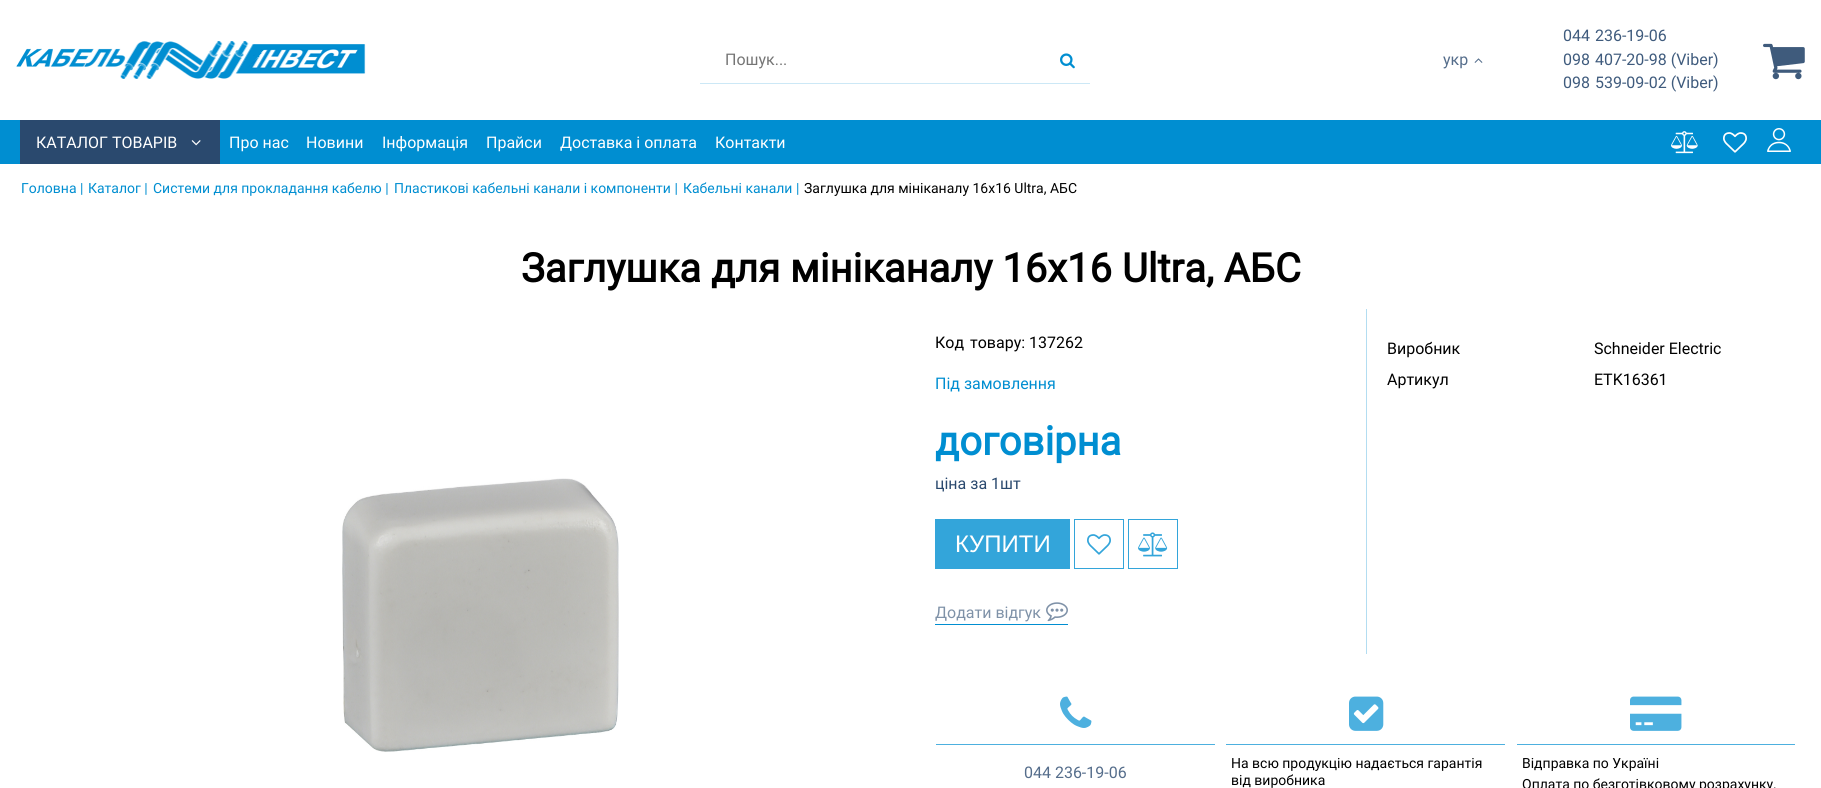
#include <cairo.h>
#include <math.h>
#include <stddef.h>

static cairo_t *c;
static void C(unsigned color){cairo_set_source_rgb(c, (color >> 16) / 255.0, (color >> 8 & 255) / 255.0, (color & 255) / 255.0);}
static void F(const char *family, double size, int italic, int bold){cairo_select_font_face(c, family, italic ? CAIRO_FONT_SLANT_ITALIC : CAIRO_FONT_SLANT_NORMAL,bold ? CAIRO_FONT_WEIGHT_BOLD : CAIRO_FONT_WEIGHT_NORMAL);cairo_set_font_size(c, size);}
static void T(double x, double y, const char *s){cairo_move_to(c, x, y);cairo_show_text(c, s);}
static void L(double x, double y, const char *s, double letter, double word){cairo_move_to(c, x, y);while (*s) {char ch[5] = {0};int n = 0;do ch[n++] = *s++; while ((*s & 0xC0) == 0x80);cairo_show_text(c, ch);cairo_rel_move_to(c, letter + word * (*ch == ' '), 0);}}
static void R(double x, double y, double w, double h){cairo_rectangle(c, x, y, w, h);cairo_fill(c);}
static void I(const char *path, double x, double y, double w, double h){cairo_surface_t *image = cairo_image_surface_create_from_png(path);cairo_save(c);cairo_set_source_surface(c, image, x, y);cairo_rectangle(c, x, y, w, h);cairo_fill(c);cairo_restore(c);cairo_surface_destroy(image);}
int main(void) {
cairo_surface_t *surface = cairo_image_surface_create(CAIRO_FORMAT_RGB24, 1821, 788);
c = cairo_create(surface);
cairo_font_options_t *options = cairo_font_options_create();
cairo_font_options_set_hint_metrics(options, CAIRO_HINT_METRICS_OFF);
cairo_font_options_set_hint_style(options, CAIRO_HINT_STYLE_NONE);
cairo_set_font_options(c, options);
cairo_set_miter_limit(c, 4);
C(0xffffff);
cairo_paint(c);
I("1.png",16,41,350,38);
C(0xcce8f6);
R(700,83,390,1);
F("Roboto",16,0,0);
C(0x757575);
T(725,65,"Пошук...");
I("2.png",1060,53,15,16);
C(0x556d8b);
T(1443,65,"укр");
I("3.png",1474,58,9,5);
C(0x3f5b7d);
T(1563,41,"044");
T(1595,41,"236-19-06");
T(1563,65,"098");
T(1595,65,"407-20-98 (Viber)");
T(1563,88,"098");
T(1595,88,"539-09-02 (Viber)");
I("4.png",1763,43,42,37);
C(0x008ed1);
R(0,120,1821,44);
C(0x2a496e);
R(20,120,200,44);
C(0xffffff);
T(36,148,"КАТАЛОГ ТОВАРІВ");
I("5.png",191,140,10,6);
T(229,148,"Про нас");
T(306,148,"Новини");
T(382,148,"Інформація");
T(486,148,"Прайси");
T(560,148,"Доставка і оплата");
T(715,148,"Контакти");
I("6.png",1671,131,27,23);
I("7.png",1723,132,24,21);
I("8.png",1767,128,24,24);
F("Roboto",14,0,0);
C(0x008ed1);
T(21,193,"Головна |");
T(88,193,"Каталог |");
T(153,193,"Системи для прокладання кабелю |");
T(394,193,"Пластикові кабельні канали і компоненти |");
T(683,193,"Кабельні канали |");
C(0x000000);
T(804,193,"Заглушка для мініканалу 16х16 Ultra, АБС");
F("Roboto",40,0,1);
T(521,282,"Заглушка для мініканалу 16х16 Ultra, АБС");
I("9.png",342,478,277,274);
F("Roboto",16,0,0);
L(935,348,"Код товару:",0,2);
T(1029,348,"137262");
C(0x008ed1);
T(935,389,"Під замовлення");
F("Roboto",40,0,1);
T(935,455,"договірна");
F("Roboto",16,0,0);
C(0x2a496e);
T(935,489,"ціна за 1шт");
C(0x33a5da);
R(935,519,135,50);
F("Liberation Sans",24,0,0);
C(0xffffff);
T(955,552,"КУПИТИ");
cairo_rectangle(c,1074.5,519.5,49,49);
C(0x33a5da);
cairo_set_line_width(c,1);
cairo_stroke(c);
I("10.png",1087,534,24,21);
cairo_rectangle(c,1128.5,519.5,49,49);
cairo_stroke(c);
I("11.png",1138,532,30,25);
C(0x008ed1);
R(935,624,133,1);
F("Roboto",16,0,0);
C(0x7f92a8);
T(935,618,"Додати відгук");
I("12.png",1046,602,22,20);
C(0xb3ddf1);
R(1366,309,1,345);
C(0x000000);
T(1387,354,"Виробник");
T(1594,354,"Schneider Electric");
T(1387,385,"Артикул");
T(1594,385,"ETK16361");
C(0x4db0df);
R(936,744,279,1);
I("13.png",1060,696,32,32);
R(1226,744,279,1);
I("14.png",1349,696,35,35);
R(1517,744,278,1);
I("15.png",1630,696,52,35);
C(0x556d8b);
T(1024,778,"044 236-19-06");
F("Roboto",14,0,0);
C(0x000000);
T(1231,768,"На всю продукцію надається гарантія");
T(1231,785,"від виробника");
T(1522,768,"Відправка по Україні");
T(1522,789,"Оплата по безготівковому розрахунку,");
cairo_surface_write_to_png(surface, "o.png");
cairo_font_options_destroy(options);
cairo_destroy(c);
cairo_surface_destroy(surface);
return 0;
}
